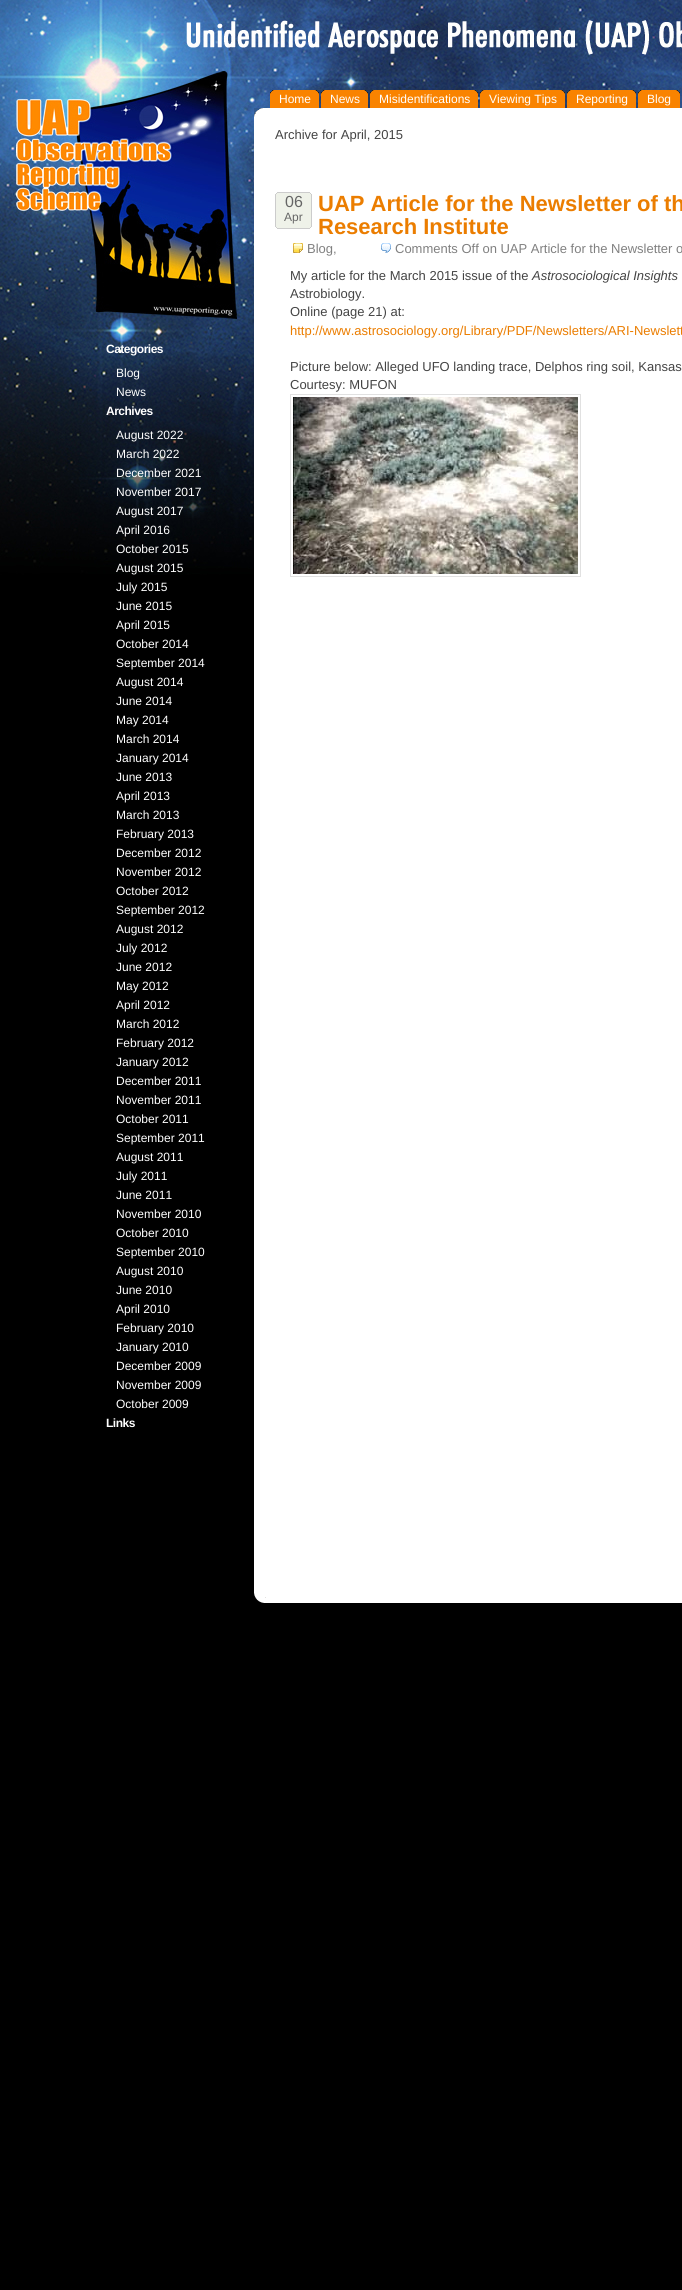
#include <cairo.h>
#include <math.h>
#include <stddef.h>

static cairo_t *c;
static void C(unsigned color){cairo_set_source_rgb(c, (color >> 16) / 255.0, (color >> 8 & 255) / 255.0, (color & 255) / 255.0);}
static void F(const char *family, double size, int italic, int bold){cairo_select_font_face(c, family, italic ? CAIRO_FONT_SLANT_ITALIC : CAIRO_FONT_SLANT_NORMAL,bold ? CAIRO_FONT_WEIGHT_BOLD : CAIRO_FONT_WEIGHT_NORMAL);cairo_set_font_size(c, size);}
static void T(double x, double y, const char *s){cairo_move_to(c, x, y);cairo_show_text(c, s);}
static void L(double x, double y, const char *s, double letter, double word){cairo_move_to(c, x, y);while (*s) {char ch[5] = {0};int n = 0;do ch[n++] = *s++; while ((*s & 0xC0) == 0x80);cairo_show_text(c, ch);cairo_rel_move_to(c, letter + word * (*ch == ' '), 0);}}
static void R(double x, double y, double w, double h){cairo_rectangle(c, x, y, w, h);cairo_fill(c);}
static void I(const char *path, double x, double y, double w, double h){cairo_surface_t *image = cairo_image_surface_create_from_png(path);cairo_save(c);cairo_set_source_surface(c, image, x, y);cairo_rectangle(c, x, y, w, h);cairo_fill(c);cairo_restore(c);cairo_surface_destroy(image);}
int main(void) {
cairo_surface_t *surface = cairo_image_surface_create(CAIRO_FORMAT_RGB24, 682, 2290);
c = cairo_create(surface);
cairo_font_options_t *options = cairo_font_options_create();
cairo_font_options_set_hint_metrics(options, CAIRO_HINT_METRICS_OFF);
cairo_font_options_set_hint_style(options, CAIRO_HINT_STYLE_NONE);
cairo_set_font_options(c, options);
cairo_set_miter_limit(c, 4);
C(0x000000);
cairo_paint(c);
I("1.png",0,0,682,575);
I("2.png",270,90,17,18);
I("3.png",287,90,32,18);
F("Liberation Sans",12,0,0);
C(0xffffff);
T(279,103,"Home");
I("4.png",321,90,17,18);
I("5.png",338,90,30,18);
T(330,103,"News");
I("6.png",370,90,17,18);
I("7.png",387,90,91,18);
T(379,103,"Misidentifications");
I("8.png",480,90,17,18);
I("9.png",497,90,68,18);
T(489,103,"Viewing Tips");
I("10.png",567,90,17,18);
I("11.png",584,90,52,18);
T(576,103,"Reporting");
I("12.png",638,90,17,18);
I("13.png",655,90,25,18);
T(647,103,"Blog");
R(254,108,428,1332);
I("14.png",254,108,9,9);
F("Liberation Sans",13,0,0);
C(0x444444);
T(275,139,"Archive for April, 2015");
I("15.png",275,192,37,37);
F("Liberation Sans",16,0,0);
C(0x666666);
T(285,207,"06");
F("Liberation Sans",12,0,0);
T(284,221,"Apr");
F("Liberation Sans",22,0,1);
C(0xeb7d00);
T(318,211,"UAP Article for the Newsletter of th");
T(318,234,"Research Institute");
I("16.png",293,243,10,10);
F("Liberation Sans",13,0,0);
C(0x808080);
T(307,253,"Blog,");
I("17.png",381,243,10,10);
T(395,253,"Comments Off on UAP Article for the Newsletter o");
C(0x444444);
T(290,280,"My article for the March 2015 issue of the");
F("Liberation Sans",13,1,0);
T(532,280,"Astrosociological Insights");
F("Liberation Sans",13,0,0);
T(290,298,"Astrobiology.");
T(290,316,"Online (page 21) at:");
C(0xeb7d00);
T(290,335,"http://www.astrosociology.org/Library/PDF/Newsletters/ARI-Newslett");
C(0x444444);
T(290,371,"Picture below: Alleged UFO landing trace, Delphos ring soil, Kansas");
T(290,389,"Courtesy: MUFON");
cairo_rectangle(c,290.5,394.5,290,182);
C(0xe1e1e1);
cairo_set_line_width(c,1);
cairo_stroke(c);
I("18.png",293,397,285,177);
F("Liberation Sans",12,0,1);
C(0xffffff);
L(106,353,"Categories",-.5,0);
F("Liberation Sans",12,0,0);
T(116,377,"Blog");
T(116,396,"News");
F("Liberation Sans",12,0,1);
L(106,415,"Archives",-.5,0);
F("Liberation Sans",12,0,0);
T(116,439,"August 2022");
T(116,458,"March 2022");
T(116,477,"December 2021");
T(116,496,"November 2017");
T(116,515,"August 2017");
T(116,534,"April 2016");
T(116,553,"October 2015");
T(116,572,"August 2015");
T(116,591,"July 2015");
T(116,610,"June 2015");
T(116,629,"April 2015");
T(116,648,"October 2014");
T(116,667,"September 2014");
T(116,686,"August 2014");
T(116,705,"June 2014");
T(116,724,"May 2014");
T(116,743,"March 2014");
T(116,762,"January 2014");
T(116,781,"June 2013");
T(116,800,"April 2013");
T(116,819,"March 2013");
T(116,838,"February 2013");
T(116,857,"December 2012");
T(116,876,"November 2012");
T(116,895,"October 2012");
T(116,914,"September 2012");
T(116,933,"August 2012");
T(116,952,"July 2012");
T(116,971,"June 2012");
T(116,990,"May 2012");
T(116,1009,"April 2012");
T(116,1028,"March 2012");
T(116,1047,"February 2012");
T(116,1066,"January 2012");
T(116,1085,"December 2011");
T(116,1104,"November 2011");
T(116,1123,"October 2011");
T(116,1142,"September 2011");
T(116,1161,"August 2011");
T(116,1180,"July 2011");
T(116,1199,"June 2011");
T(116,1218,"November 2010");
T(116,1237,"October 2010");
T(116,1256,"September 2010");
T(116,1275,"August 2010");
T(116,1294,"June 2010");
T(116,1313,"April 2010");
T(116,1332,"February 2010");
T(116,1351,"January 2010");
T(116,1370,"December 2009");
T(116,1389,"November 2009");
T(116,1408,"October 2009");
F("Liberation Sans",12,0,1);
L(106,1427,"Links",-.5,0);
I("19.png",254,1440,428,163);
cairo_surface_write_to_png(surface, "o.png");
cairo_font_options_destroy(options);
cairo_destroy(c);
cairo_surface_destroy(surface);
return 0;
}
